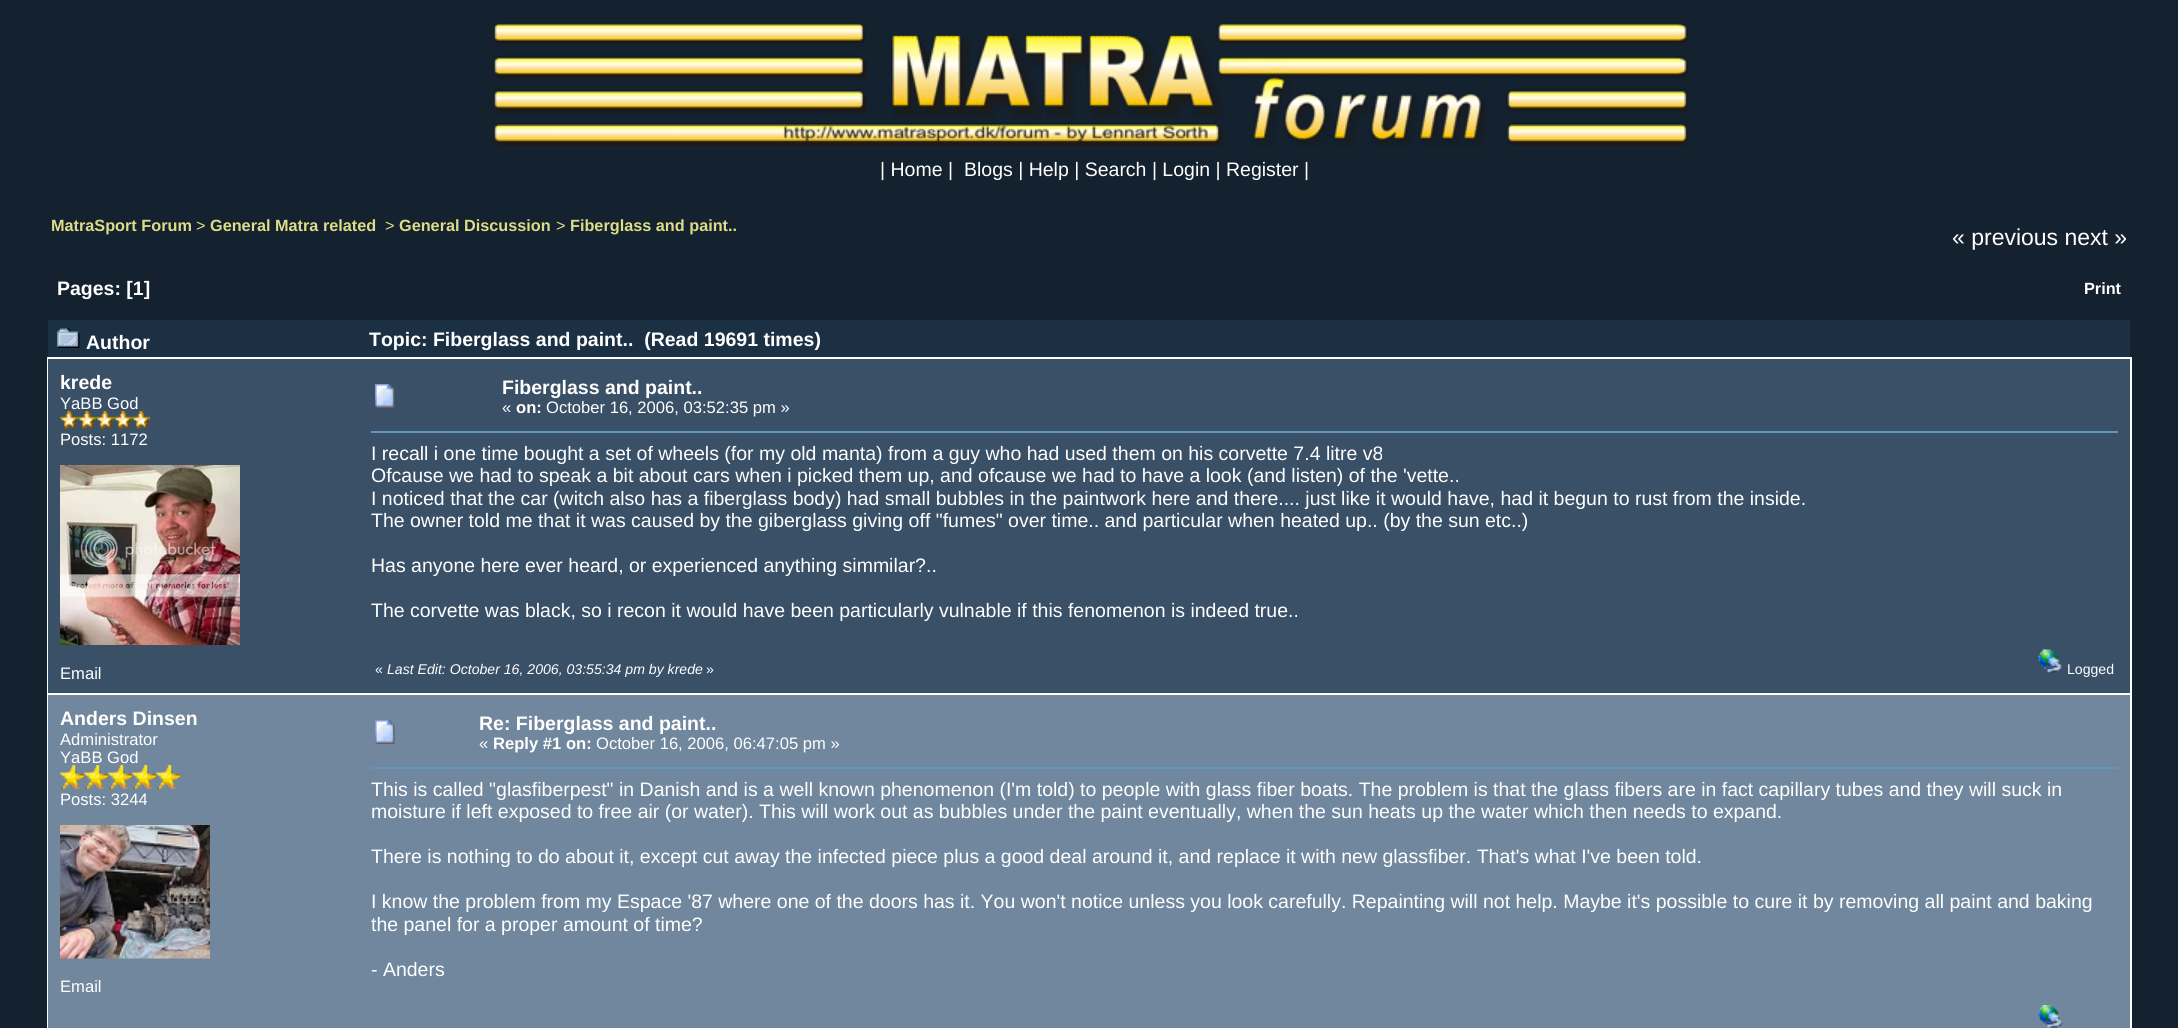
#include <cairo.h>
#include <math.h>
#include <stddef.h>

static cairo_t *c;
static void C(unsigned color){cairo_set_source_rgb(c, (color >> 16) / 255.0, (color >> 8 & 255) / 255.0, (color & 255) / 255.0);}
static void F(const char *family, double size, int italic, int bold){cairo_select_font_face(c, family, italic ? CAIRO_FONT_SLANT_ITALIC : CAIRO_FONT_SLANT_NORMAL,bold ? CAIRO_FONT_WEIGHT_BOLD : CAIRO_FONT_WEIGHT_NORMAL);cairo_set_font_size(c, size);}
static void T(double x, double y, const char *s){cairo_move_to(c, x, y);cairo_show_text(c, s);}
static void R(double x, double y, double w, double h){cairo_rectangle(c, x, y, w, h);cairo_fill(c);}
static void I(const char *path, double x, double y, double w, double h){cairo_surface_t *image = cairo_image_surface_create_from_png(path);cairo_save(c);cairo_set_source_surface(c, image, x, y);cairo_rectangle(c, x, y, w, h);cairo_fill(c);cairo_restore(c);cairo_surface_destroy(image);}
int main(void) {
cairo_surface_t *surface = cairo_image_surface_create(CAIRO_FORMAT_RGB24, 2178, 1028);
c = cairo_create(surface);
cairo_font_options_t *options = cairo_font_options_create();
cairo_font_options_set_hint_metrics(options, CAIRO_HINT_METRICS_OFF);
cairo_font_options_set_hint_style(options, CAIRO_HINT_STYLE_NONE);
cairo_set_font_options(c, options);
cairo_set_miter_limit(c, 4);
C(0x14212e);
cairo_paint(c);
I("1.png",493,22,1195,125);
F("Liberation Sans",19.5,0,0);
C(0xffffff);
T(880,176,"| Home |");
T(964,176,"Blogs | Help | Search | Login | Register |");
F("Liberation Sans",16.25,0,1);
C(0xdddd88);
T(51,231,"MatraSport Forum");
F("Liberation Sans",16.25,0,0);
T(196,231,">");
F("Liberation Sans",16.25,0,1);
T(210,231,"General Matra related");
F("Liberation Sans",16.25,0,0);
T(385,231,">");
F("Liberation Sans",16.25,0,1);
T(399,231,"General Discussion");
F("Liberation Sans",16.25,0,0);
T(556,231,">");
F("Liberation Sans",16.25,0,1);
T(570,231,"Fiberglass and paint..");
F("Liberation Sans",23,0,0);
C(0xffffff);
T(1952,245,"« previous next »");
F("Liberation Sans",19.5,0,1);
T(57,295,"Pages: [1]");
F("Liberation Sans",16.25,0,1);
T(2084,294,"Print");
C(0x1c3044);
R(48,320,2082,37);
I("2.png",57,328,23,20);
F("Liberation Sans",19.5,0,1);
C(0xffffff);
T(86,349,"Author");
T(369,346,"Topic: Fiberglass and paint..  (Read 19691 times)");
R(47,357,2085,671);
C(0x395067);
R(48,359,2082,334);
C(0xffffff);
T(60,389,"krede");
F("Liberation Sans",16.6,0,0);
T(60,409,"YaBB God");
I("3.png",60,411,18,18);
I("3.png",78,411,18,18);
I("3.png",96,411,18,18);
I("3.png",114,411,18,18);
I("3.png",132,411,18,18);
T(60,445,"Posts: 1172");
I("4.png",60,465,180,180);
T(60,679,"Email");
I("5.png",375,384,20,24);
F("Liberation Sans",19.5,0,1);
T(502,394,"Fiberglass and paint..");
F("Liberation Sans",16.6,0,0);
T(502,413,"«");
F("Liberation Sans",16.6,0,1);
T(516,413,"on:");
F("Liberation Sans",16.6,0,0);
T(546,413,"October 16, 2006, 03:52:35 pm »");
C(0x6394bd);
R(371,431,1747,2);
F("Liberation Sans",19.5,0,0);
C(0xffffff);
T(371,460,"I recall i one time bought a set of wheels (for my old manta) from a guy who had used them on his corvette 7.4 litre v8");
T(371,482,"Ofcause we had to speak a bit about cars when i picked them up, and ofcause we had to have a look (and listen) of the 'vette..");
T(371,505,"I noticed that the car (witch also has a fiberglass body) had small bubbles in the paintwork here and there.... just like it would have, had it begun to rust from the inside.");
T(371,527,"The owner told me that it was caused by the giberglass giving off \"fumes\" over time.. and particular when heated up.. (by the sun etc..)");
T(371,572,"Has anyone here ever heard, or experienced anything simmilar?..");
T(371,617,"The corvette was black, so i recon it would have been particularly vulnable if this fenomenon is indeed true..");
F("Liberation Sans",14.1,0,0);
T(375,674,"«");
F("Liberation Sans",14.1,1,0);
T(387,674,"Last Edit: October 16, 2006, 03:55:34 pm by krede");
F("Liberation Sans",14.1,0,0);
T(706,674,"»");
I("6.png",2038,649,25,25);
T(2067,674,"Logged");
C(0x70879e);
R(48,695,2082,333);
F("Liberation Sans",19.5,0,1);
C(0xffffff);
T(60,725,"Anders Dinsen");
F("Liberation Sans",16.6,0,0);
T(60,745,"Administrator");
T(60,763,"YaBB God");
I("7.png",60,765,24,24);
I("7.png",84,765,24,24);
I("7.png",108,765,24,24);
I("7.png",132,765,24,24);
I("7.png",156,765,24,24);
T(60,805,"Posts: 3244");
I("8.png",60,825,150,134);
T(60,992,"Email");
I("9.png",375,720,20,24);
F("Liberation Sans",19.5,0,1);
T(479,730,"Re: Fiberglass and paint..");
F("Liberation Sans",16.6,0,0);
T(479,749,"«");
F("Liberation Sans",16.6,0,1);
T(493,749,"Reply #1 on:");
F("Liberation Sans",16.6,0,0);
T(596,749,"October 16, 2006, 06:47:05 pm »");
C(0x6394bd);
R(371,767,1747,2);
F("Liberation Sans",19.5,0,0);
C(0xffffff);
T(371,796,"This is called \"glasfiberpest\" in Danish and is a well known phenomenon (I'm told) to people with glass fiber boats. The problem is that the glass fibers are in fact capillary tubes and they will suck in");
T(371,818,"moisture if left exposed to free air (or water). This will work out as bubbles under the paint eventually, when the sun heats up the water which then needs to expand.");
T(371,863,"There is nothing to do about it, except cut away the infected piece plus a good deal around it, and replace it with new glassfiber. That's what I've been told.");
T(371,908,"I know the problem from my Espace '87 where one of the doors has it. You won't notice unless you look carefully. Repainting will not help. Maybe it's possible to cure it by removing all paint and baking");
T(371,931,"the panel for a proper amount of time?");
T(371,976,"- Anders");
I("10.png",2038,1005,25,23);
cairo_surface_write_to_png(surface, "o.png");
cairo_font_options_destroy(options);
cairo_destroy(c);
cairo_surface_destroy(surface);
return 0;
}
